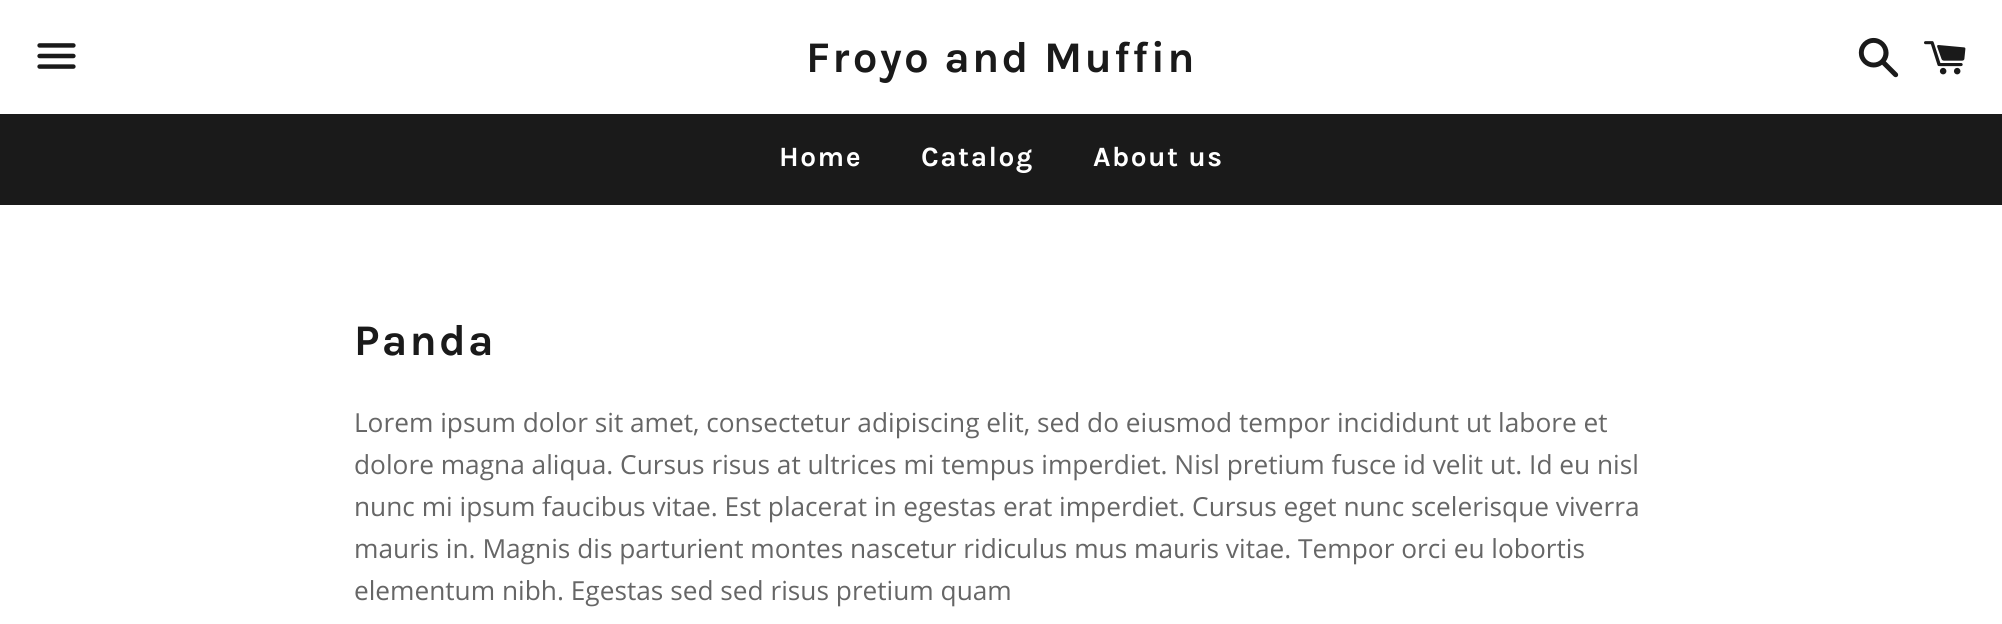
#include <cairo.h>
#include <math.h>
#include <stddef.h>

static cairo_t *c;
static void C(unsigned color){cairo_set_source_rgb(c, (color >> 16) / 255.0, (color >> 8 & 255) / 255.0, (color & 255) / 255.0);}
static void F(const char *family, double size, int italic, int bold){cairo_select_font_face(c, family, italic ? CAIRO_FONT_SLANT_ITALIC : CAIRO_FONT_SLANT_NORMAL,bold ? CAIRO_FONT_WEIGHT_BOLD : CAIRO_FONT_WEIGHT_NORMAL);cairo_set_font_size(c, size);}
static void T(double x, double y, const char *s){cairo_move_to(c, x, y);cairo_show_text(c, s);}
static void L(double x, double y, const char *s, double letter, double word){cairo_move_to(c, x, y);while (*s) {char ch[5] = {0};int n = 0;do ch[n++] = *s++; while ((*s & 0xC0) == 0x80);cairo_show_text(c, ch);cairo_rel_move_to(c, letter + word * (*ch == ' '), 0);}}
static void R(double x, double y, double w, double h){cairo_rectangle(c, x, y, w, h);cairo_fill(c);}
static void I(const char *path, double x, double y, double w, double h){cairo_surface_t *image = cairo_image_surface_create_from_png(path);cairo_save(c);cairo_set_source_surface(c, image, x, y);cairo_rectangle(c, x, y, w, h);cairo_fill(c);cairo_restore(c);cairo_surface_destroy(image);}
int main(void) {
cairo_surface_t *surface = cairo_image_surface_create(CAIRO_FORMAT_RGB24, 2002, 624);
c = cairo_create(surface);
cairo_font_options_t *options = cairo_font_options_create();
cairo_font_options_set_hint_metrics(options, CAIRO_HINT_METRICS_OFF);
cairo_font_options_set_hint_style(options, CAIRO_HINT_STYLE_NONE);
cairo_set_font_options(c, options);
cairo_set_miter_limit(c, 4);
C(0xffffff);
cairo_paint(c);
I("1.png",37,43,39,26);
F("Karla",43.75,0,1);
C(0x1a1a1a);
L(806,72,"Froyo and Muffin",2.25,0);
I("2.png",1858,37,41,41);
I("3.png",1924,41,42,34);
R(0,114,2002,91);
F("Karla",28,0,1);
C(0xffffff);
L(779,166,"Home",1.5,0);
L(921,166,"Catalog",1.5,0);
L(1093,166,"About us",1.5,0);
F("Karla",43.75,0,1);
C(0x1a1a1a);
L(354,355,"Panda",2.25,0);
F("Open Sans",26.25,0,0);
C(0x666666);
T(354,432,"Lorem ipsum dolor sit amet, consectetur adipiscing elit, sed do eiusmod tempor incididunt ut labore et");
T(354,474,"dolore magna aliqua. Cursus risus at ultrices mi tempus imperdiet. Nisl pretium fusce id velit ut. Id eu nisl");
T(354,516,"nunc mi ipsum faucibus vitae. Est placerat in egestas erat imperdiet. Cursus eget nunc scelerisque viverra");
T(354,558,"mauris in. Magnis dis parturient montes nascetur ridiculus mus mauris vitae. Tempor orci eu lobortis");
T(354,600,"elementum nibh. Egestas sed sed risus pretium quam");
cairo_surface_write_to_png(surface, "o.png");
cairo_font_options_destroy(options);
cairo_destroy(c);
cairo_surface_destroy(surface);
return 0;
}
